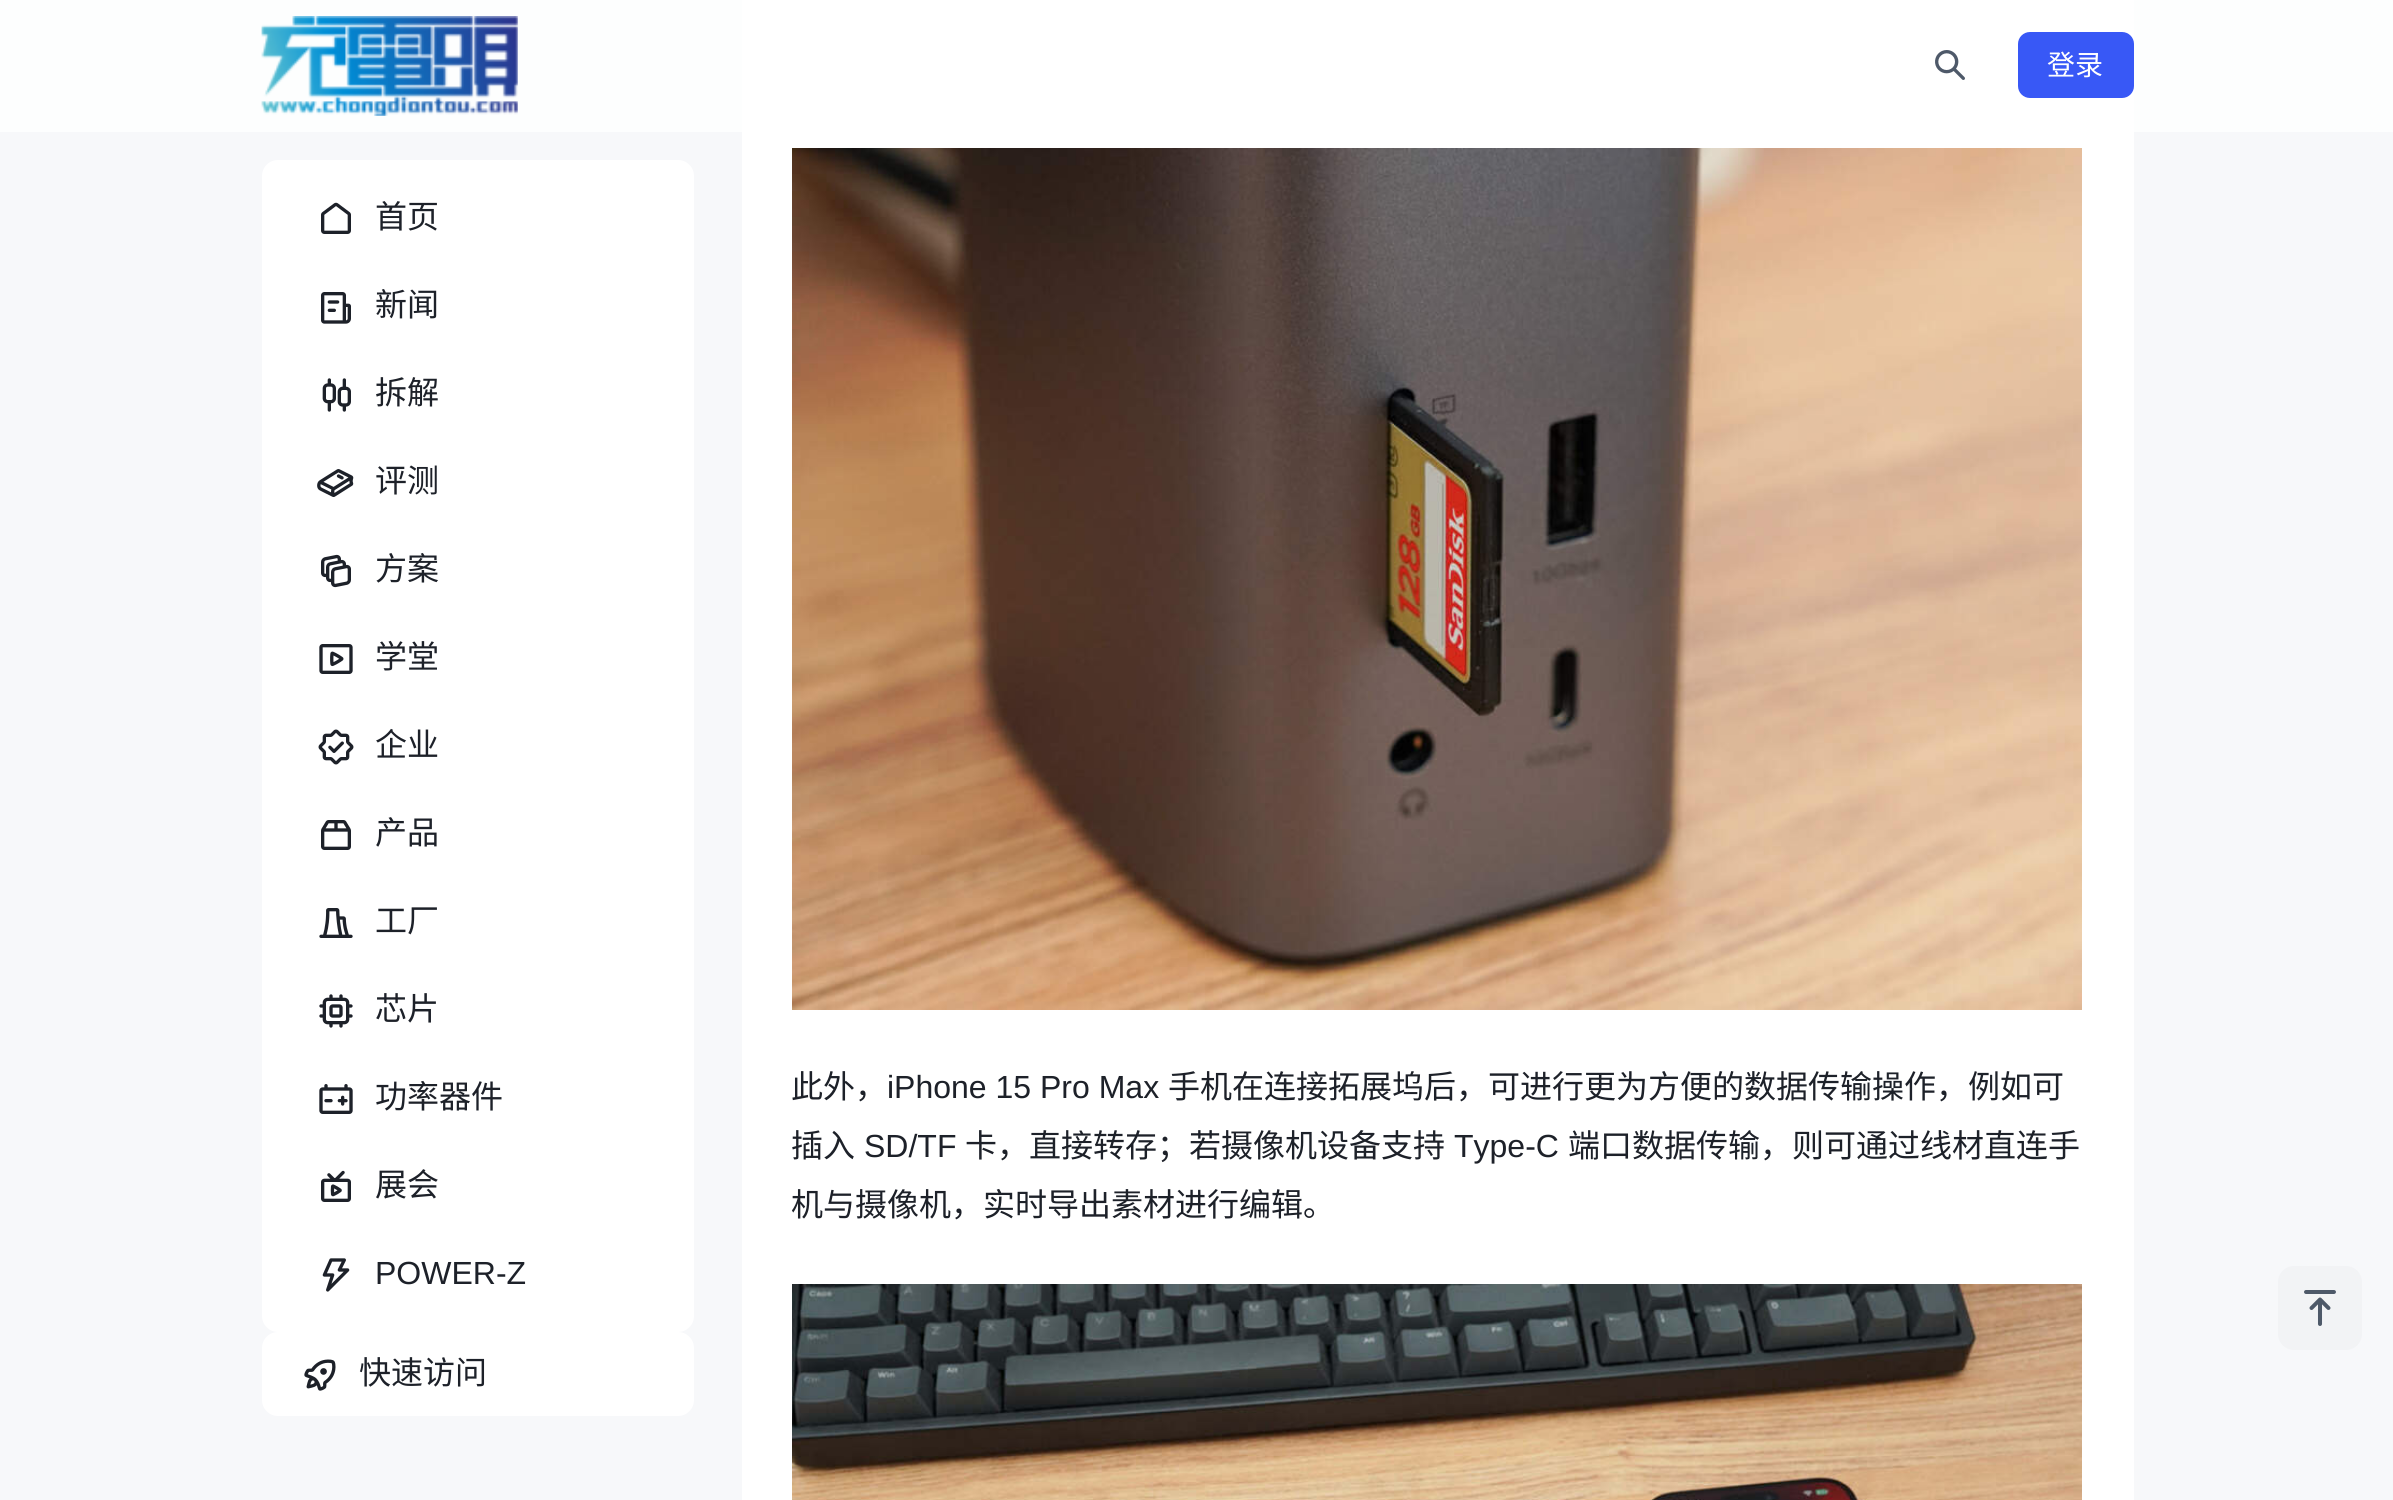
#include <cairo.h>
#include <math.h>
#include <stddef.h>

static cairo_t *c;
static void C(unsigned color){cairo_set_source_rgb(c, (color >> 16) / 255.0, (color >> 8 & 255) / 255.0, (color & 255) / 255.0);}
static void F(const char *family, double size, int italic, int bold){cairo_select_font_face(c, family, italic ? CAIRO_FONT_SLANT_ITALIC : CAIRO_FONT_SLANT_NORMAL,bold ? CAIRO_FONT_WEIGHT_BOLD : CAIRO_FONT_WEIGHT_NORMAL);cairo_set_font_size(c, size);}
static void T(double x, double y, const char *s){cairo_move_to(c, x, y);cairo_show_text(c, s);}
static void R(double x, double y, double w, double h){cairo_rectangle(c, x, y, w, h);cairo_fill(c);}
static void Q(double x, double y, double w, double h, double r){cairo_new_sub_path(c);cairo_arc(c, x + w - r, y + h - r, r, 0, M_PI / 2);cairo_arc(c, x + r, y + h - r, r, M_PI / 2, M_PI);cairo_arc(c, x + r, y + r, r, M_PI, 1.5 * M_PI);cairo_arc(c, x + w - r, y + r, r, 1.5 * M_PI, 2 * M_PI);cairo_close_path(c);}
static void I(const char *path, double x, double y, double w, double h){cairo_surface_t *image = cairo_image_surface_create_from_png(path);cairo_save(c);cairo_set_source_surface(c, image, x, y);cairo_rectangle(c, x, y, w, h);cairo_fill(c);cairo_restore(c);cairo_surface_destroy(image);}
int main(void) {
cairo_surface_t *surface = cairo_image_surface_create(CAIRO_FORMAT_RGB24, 2393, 1500);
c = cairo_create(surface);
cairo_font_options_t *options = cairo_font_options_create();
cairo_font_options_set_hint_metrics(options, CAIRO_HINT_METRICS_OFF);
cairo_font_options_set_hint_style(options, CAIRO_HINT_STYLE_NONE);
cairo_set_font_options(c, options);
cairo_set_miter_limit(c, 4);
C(0xf7f8fa);
cairo_paint(c);
C(0xffffff);
R(742,0,1392,1500);
cairo_set_source_rgba(c,1,1,1,0.8);
R(0,0,2393,132);
I("1.png",261,16,257,100);
I("2.png",1935,50,30,30);
C(0x3858f6);
Q(2019,33,114,64,11);
cairo_fill_preserve(c);
cairo_stroke(c);
F("Noto Sans CJK SC",28,0,0);
C(0xffffff);
T(2047,75,"登录");
Q(262,160,432,1172,16);
cairo_fill(c);
I("3.png",321,202,30,32);
F("Noto Sans CJK SC",32,0,0);
C(0x1d2129);
T(375,228,"首页");
I("4.png",321,292,30,32);
T(375,316,"新闻");
I("5.png",322,378,29,34);
T(375,404,"拆解");
I("6.png",317,469,37,28);
T(375,492,"评测");
I("7.png",321,554,30,34);
T(375,580,"方案");
I("8.png",319,644,34,30);
T(375,668,"学堂");
I("9.png",318,729,36,36);
T(375,756,"企业");
I("10.png",321,820,30,30);
T(375,844,"产品");
I("11.png",319,908,34,30);
T(375,932,"工厂");
I("12.png",319,994,34,34);
T(375,1020,"芯片");
I("13.png",319,1084,34,30);
T(375,1108,"功率器件");
I("14.png",321,1170,30,32);
T(375,1196,"展会");
I("15.png",322,1258,28,34);
F("Liberation Sans",32,0,0);
T(375,1284,"POWER-Z");
C(0xffffff);
Q(262,1332,432,84,16);
cairo_fill(c);
I("16.png",304,1359,32,32);
F("Noto Sans CJK SC",32,0,0);
C(0x1d2129);
T(359,1384,"快速访问");
I("17.png",792,148,1290,862);
T(791,1098,"此外，");
F("Liberation Sans",32,0,0);
T(887,1098,"iPhone 15 Pro Max");
F("Noto Sans CJK SC",32,0,0);
T(1168,1098,"手机在连接拓展坞后，可进行更为方便的数据传输操作，例如可");
T(791,1157,"插入");
F("Liberation Sans",32,0,0);
T(864,1157,"SD/TF");
F("Noto Sans CJK SC",32,0,0);
T(965,1157,"卡，直接转存；若摄像机设备支持");
F("Liberation Sans",32,0,0);
T(1454,1157,"Type-C");
F("Noto Sans CJK SC",32,0,0);
T(1568,1157,"端口数据传输，则可通过线材直连手");
T(791,1216,"机与摄像机，实时导出素材进行编辑。");
I("18.png",792,1284,1290,216);
C(0xf2f3f5);
Q(2278,1266,84,84,16);
cairo_fill(c);
I("19.png",2304,1290,32,36);
cairo_surface_write_to_png(surface, "o.png");
cairo_font_options_destroy(options);
cairo_destroy(c);
cairo_surface_destroy(surface);
return 0;
}
